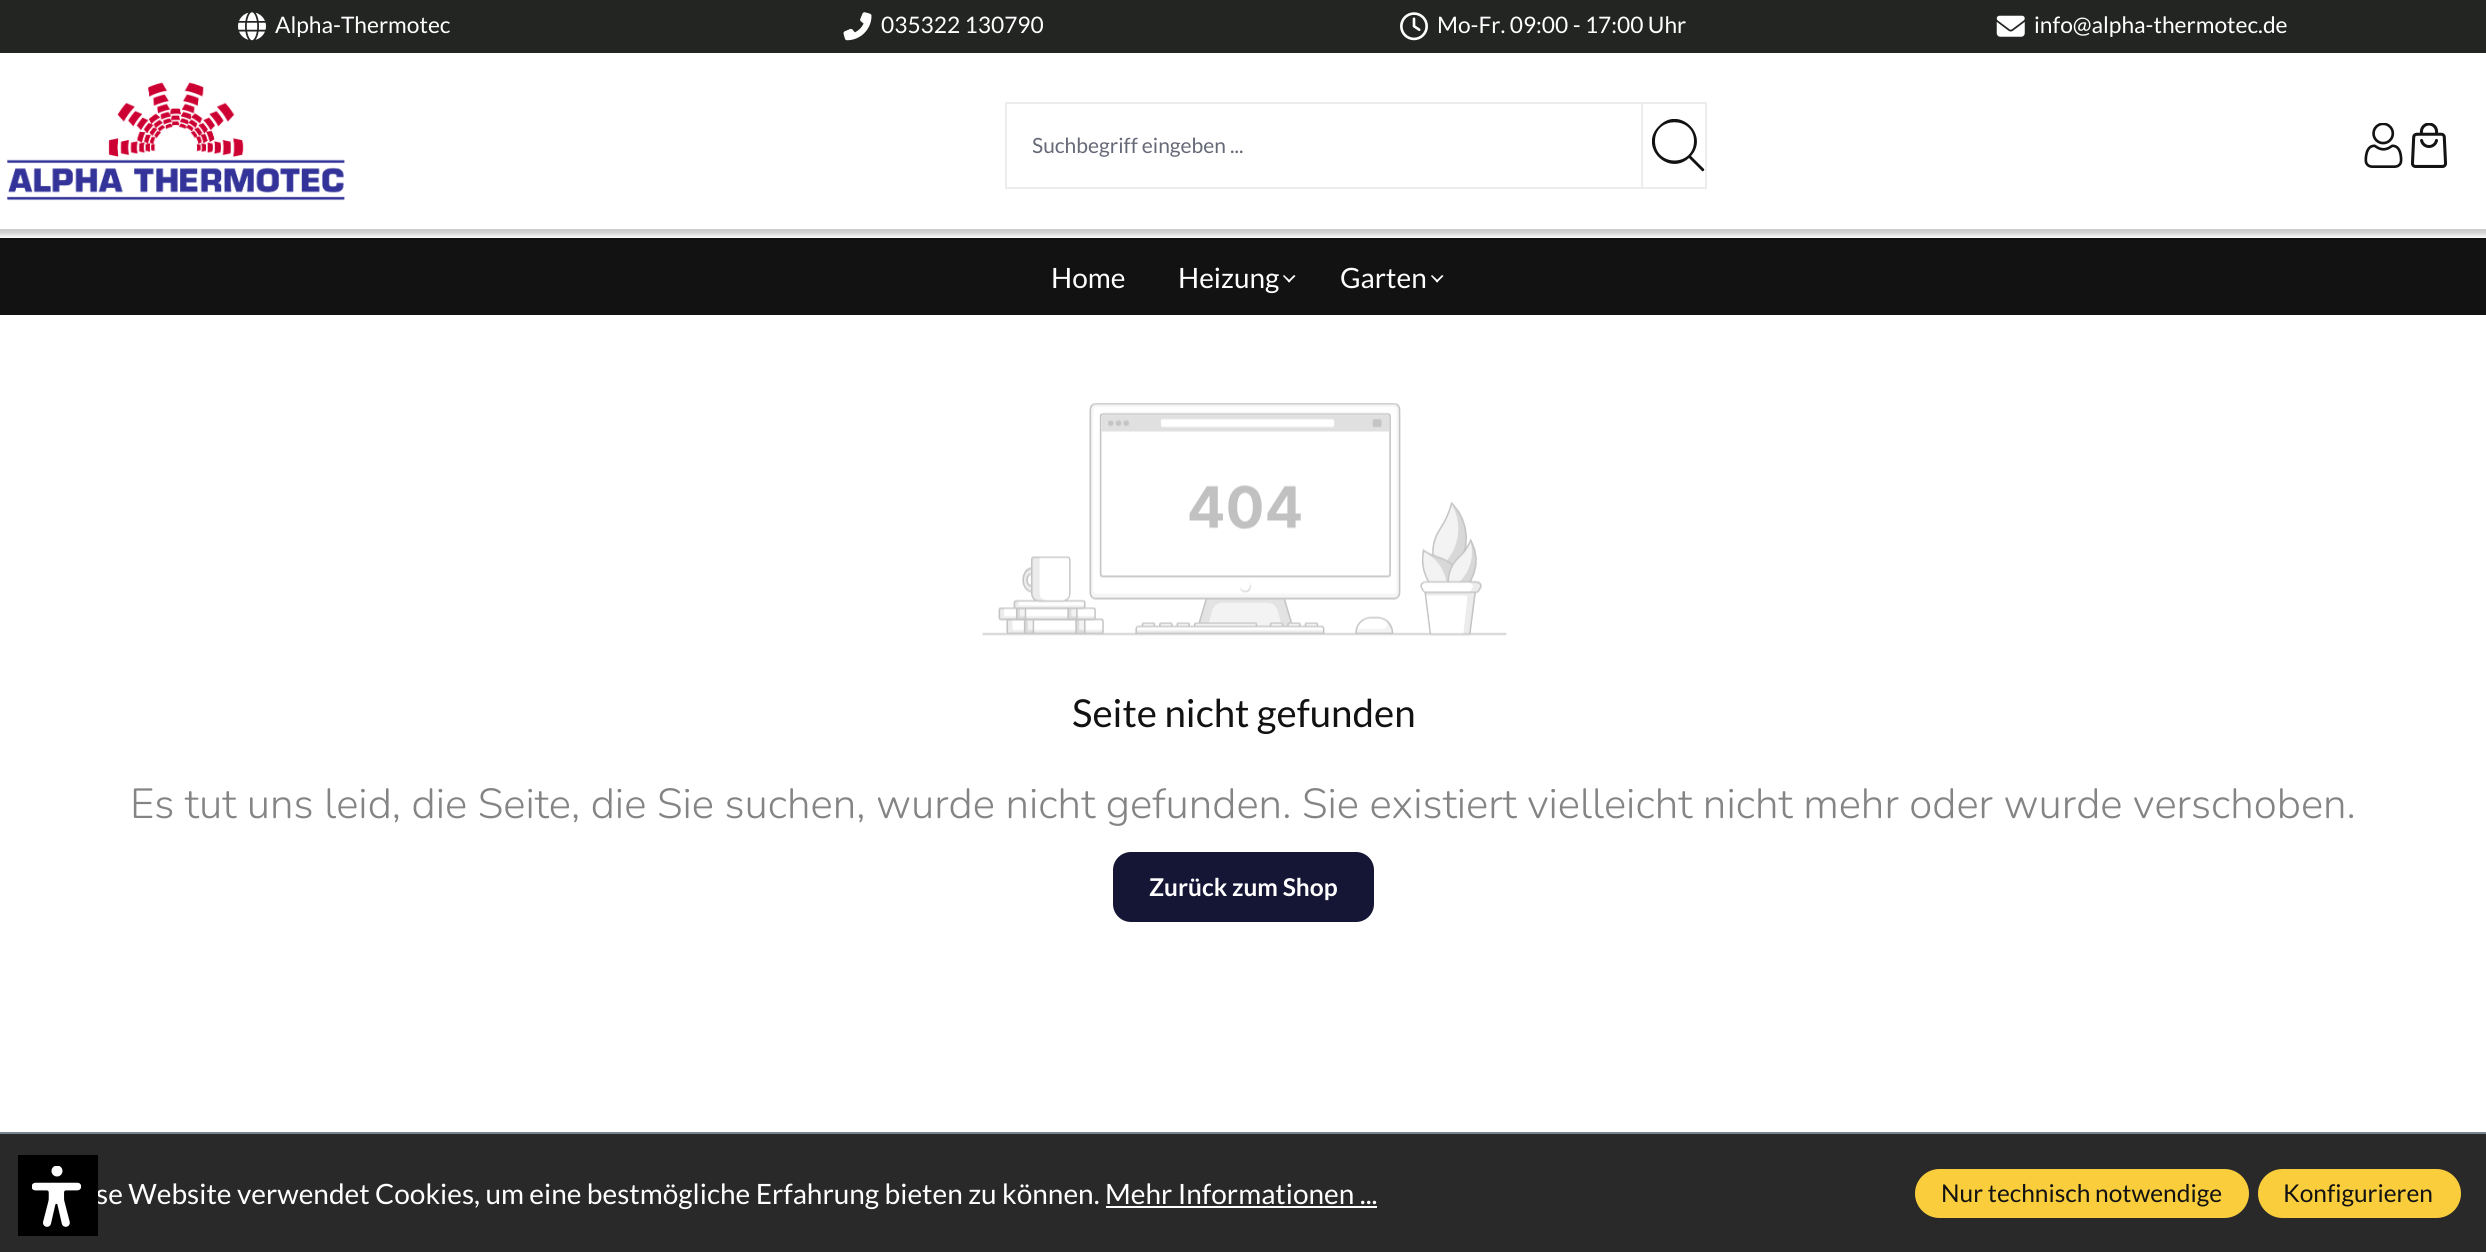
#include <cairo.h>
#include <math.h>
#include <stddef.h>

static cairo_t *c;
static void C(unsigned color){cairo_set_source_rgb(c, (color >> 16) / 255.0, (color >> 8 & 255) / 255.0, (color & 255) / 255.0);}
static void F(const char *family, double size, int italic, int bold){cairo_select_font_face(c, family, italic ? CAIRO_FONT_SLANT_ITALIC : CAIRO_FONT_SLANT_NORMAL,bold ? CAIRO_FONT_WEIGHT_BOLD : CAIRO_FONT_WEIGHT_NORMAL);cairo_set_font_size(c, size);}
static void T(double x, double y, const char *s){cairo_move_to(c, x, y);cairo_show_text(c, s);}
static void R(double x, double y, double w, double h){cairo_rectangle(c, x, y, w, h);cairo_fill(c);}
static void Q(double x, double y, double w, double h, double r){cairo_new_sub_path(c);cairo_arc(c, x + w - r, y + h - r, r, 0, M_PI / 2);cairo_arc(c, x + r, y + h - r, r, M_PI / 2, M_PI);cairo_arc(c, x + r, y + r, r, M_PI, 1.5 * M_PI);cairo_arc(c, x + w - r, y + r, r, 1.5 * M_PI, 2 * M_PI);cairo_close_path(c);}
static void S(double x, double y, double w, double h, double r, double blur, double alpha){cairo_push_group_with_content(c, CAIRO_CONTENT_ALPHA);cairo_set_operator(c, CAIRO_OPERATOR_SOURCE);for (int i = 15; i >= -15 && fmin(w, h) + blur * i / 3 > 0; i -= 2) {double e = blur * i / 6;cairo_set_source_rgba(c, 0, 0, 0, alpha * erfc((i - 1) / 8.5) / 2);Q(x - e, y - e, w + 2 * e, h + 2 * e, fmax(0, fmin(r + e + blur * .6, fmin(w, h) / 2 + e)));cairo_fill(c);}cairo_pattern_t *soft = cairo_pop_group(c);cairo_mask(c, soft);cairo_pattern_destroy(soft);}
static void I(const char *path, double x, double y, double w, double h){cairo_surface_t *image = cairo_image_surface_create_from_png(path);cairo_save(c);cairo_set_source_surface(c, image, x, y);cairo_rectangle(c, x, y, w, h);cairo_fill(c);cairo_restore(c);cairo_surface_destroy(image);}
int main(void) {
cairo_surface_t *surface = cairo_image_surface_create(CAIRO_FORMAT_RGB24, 2486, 1252);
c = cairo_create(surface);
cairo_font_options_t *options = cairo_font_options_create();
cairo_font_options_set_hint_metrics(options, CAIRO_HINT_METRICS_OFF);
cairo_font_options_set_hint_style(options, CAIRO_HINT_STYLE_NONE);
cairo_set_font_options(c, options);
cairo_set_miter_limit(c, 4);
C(0xffffff);
cairo_paint(c);
C(0x232523);
R(0,0,2486,53);
I("1.png",238,12,28,29);
F("Lato",22.75,0,0);
C(0xffffff);
T(275,33,"Alpha-Thermotec");
I("2.png",843,12,29,29);
T(881,33,"035322 130790");
I("3.png",1400,12,28,29);
T(1437,33,"Mo-Fr. 09:00 - 17:00 Uhr");
I("4.png",1996,15,29,22);
T(2034,33,"info@alpha-thermotec.de");
C(0x121212);
R(0,238,2486,77);
cairo_save(c);
cairo_rectangle(c,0,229,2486,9);
cairo_clip(c);
C(0x000000);
S(-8,75,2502,160,0,2.5,.2);
cairo_restore(c);
I("5.png",7,82,338,119);
cairo_rectangle(c,1006,103,636,85);
C(0xececec);
cairo_stroke(c);
cairo_save(c);
cairo_rectangle(c,1033,131,582,27);
cairo_clip(c);
F("Lato",21,0,0);
C(0x666977);
T(1032,153,"Suchbegriff eingeben ...");
cairo_restore(c);
R(1643,102,63,2);
R(1705,102,2,87);
R(1643,187,63,2);
cairo_save(c);
cairo_rectangle(c,1652,119,53,53);
cairo_clip(c);
C(0x121212);
cairo_new_path(c);
cairo_move_to(c,1704,169);
cairo_line_to(c,1691,156);
cairo_curve_to(c,1710,135,1679,105,1659,126);
cairo_curve_to(c,1638,146,1668,177,1689,158);
cairo_line_to(c,1702,171);
cairo_curve_to(c,1703,172,1705,170,1704,169);
cairo_close_path(c);
cairo_move_to(c,1655,141);
cairo_curve_to(c,1655,116,1694,116,1694,141);
cairo_curve_to(c,1694,167,1655,167,1655,141);
cairo_close_path(c);
cairo_fill(c);
cairo_restore(c);
I("6.png",2364,123,39,45);
I("7.png",2410,123,38,45);
F("Lato",28,0,0);
C(0xffffff);
T(1051,288,"Home");
T(1178,288,"Heizung");
cairo_new_path(c);
cairo_move_to(c,1294,275);
cairo_line_to(c,1295.5,276);
cairo_line_to(c,1289,282.5);
cairo_line_to(c,1288,281);
cairo_close_path(c);
cairo_fill(c);
cairo_new_path(c);
cairo_move_to(c,1284,275);
cairo_line_to(c,1290.5,281);
cairo_line_to(c,1289,282.5);
cairo_line_to(c,1283,276);
cairo_close_path(c);
cairo_fill(c);
T(1340,288,"Garten");
cairo_new_path(c);
cairo_move_to(c,1442,275);
cairo_line_to(c,1443.5,276);
cairo_line_to(c,1437,282.5);
cairo_line_to(c,1436,281);
cairo_close_path(c);
cairo_fill(c);
cairo_new_path(c);
cairo_move_to(c,1432,275);
cairo_line_to(c,1438.5,281);
cairo_line_to(c,1437,282.5);
cairo_line_to(c,1431,276);
cairo_close_path(c);
cairo_fill(c);
I("8.png",982,403,525,233);
F("Lato",38.5,0,0);
C(0x121212);
T(1072,727,"Seite nicht gefunden");
F("Nunito Light",42,0,0);
C(0x848484);
T(130,818,"Es tut uns leid, die Seite, die Sie suchen, wurde nicht gefunden. Sie existiert vielleicht nicht mehr oder wurde verschoben.");
C(0x151635);
Q(1114,853,259,68,17);
cairo_fill_preserve(c);
cairo_stroke(c);
F("Lato",24.5,0,1);
C(0xffffff);
T(1149,896,"Zurück zum Shop");
C(0x292929);
R(0,1134,2486,118);
F("Lato",28,0,0);
C(0xffffff);
T(96,1204,"se Website verwendet Cookies, um eine bestmögliche Erfahrung bieten zu können. Mehr Informationen ...");
C(0x000000);
R(18,1155,80,81);
I("9.png",32,1166,49,61);
C(0x798490);
R(0,1132,2486,2);
C(0xffffff);
R(1106,1206,271,2);
C(0xf9cd3b);
Q(1916,1170,332,47,23.5);
cairo_fill_preserve(c);
cairo_stroke(c);
F("Lato",24.5,0,0);
C(0x121212);
T(1941,1202,"Nur technisch notwendige");
C(0xf9cd3b);
Q(2259,1170,201,47,23.5);
cairo_fill_preserve(c);
cairo_stroke(c);
C(0x121212);
T(2283,1202,"Konfigurieren");
cairo_surface_write_to_png(surface, "o.png");
cairo_font_options_destroy(options);
cairo_destroy(c);
cairo_surface_destroy(surface);
return 0;
}
